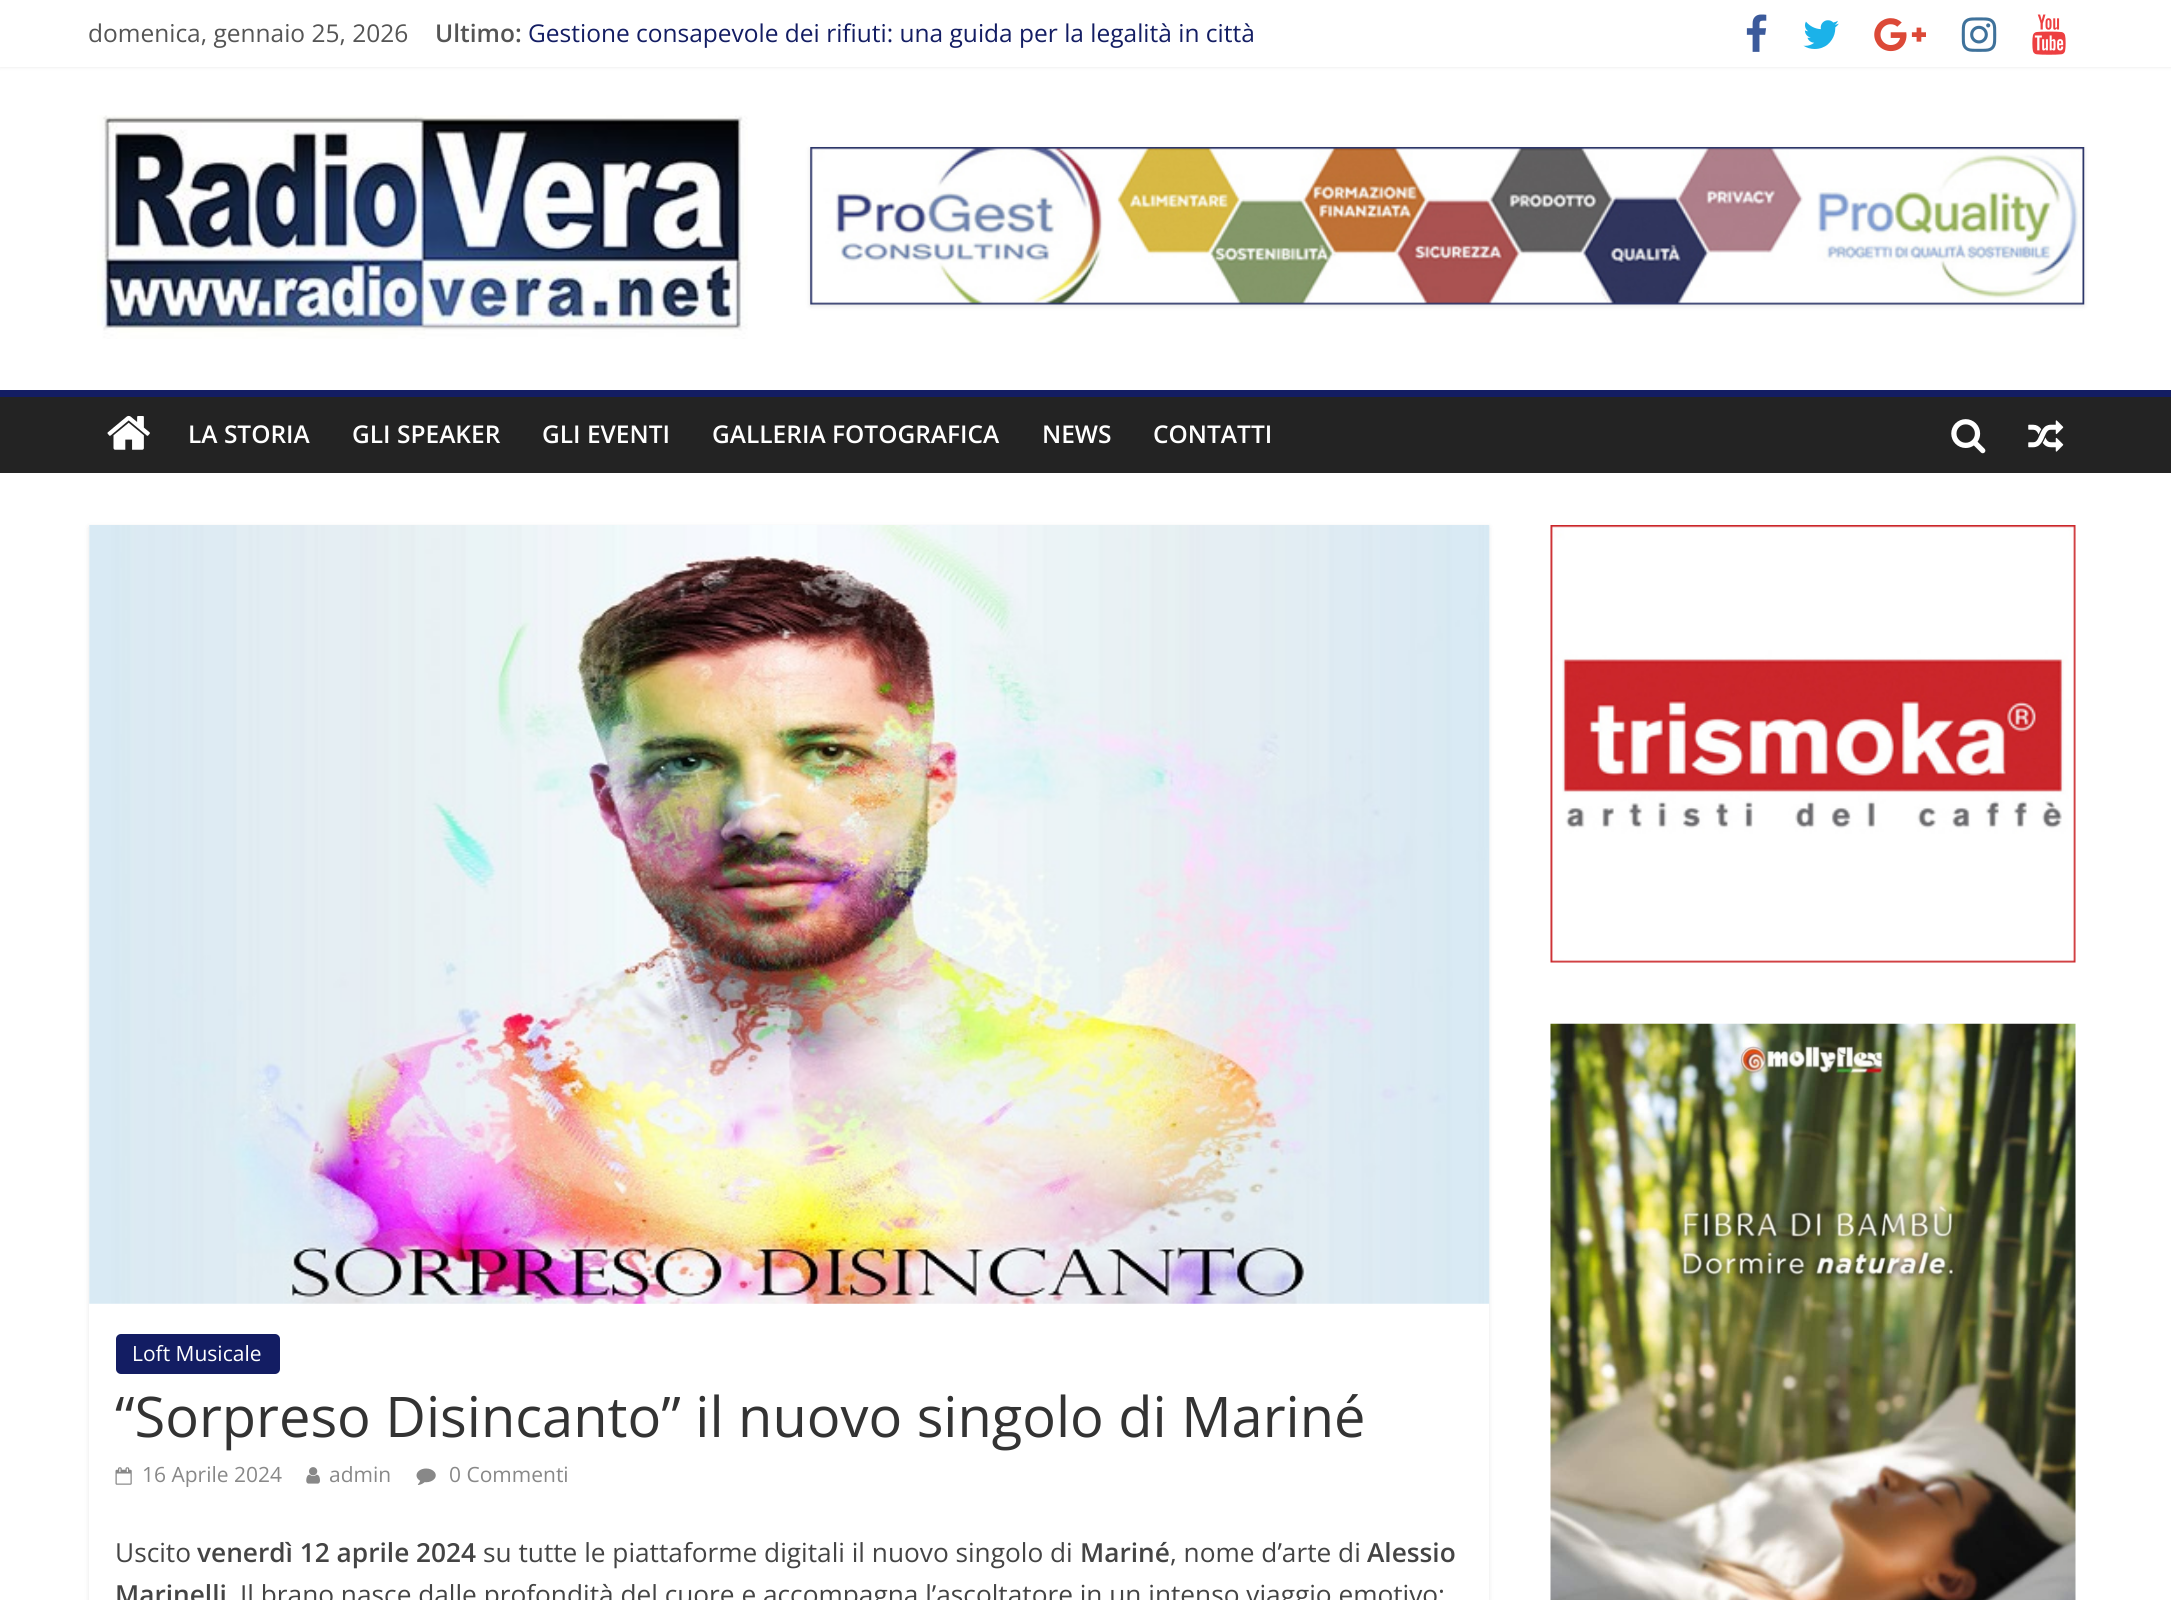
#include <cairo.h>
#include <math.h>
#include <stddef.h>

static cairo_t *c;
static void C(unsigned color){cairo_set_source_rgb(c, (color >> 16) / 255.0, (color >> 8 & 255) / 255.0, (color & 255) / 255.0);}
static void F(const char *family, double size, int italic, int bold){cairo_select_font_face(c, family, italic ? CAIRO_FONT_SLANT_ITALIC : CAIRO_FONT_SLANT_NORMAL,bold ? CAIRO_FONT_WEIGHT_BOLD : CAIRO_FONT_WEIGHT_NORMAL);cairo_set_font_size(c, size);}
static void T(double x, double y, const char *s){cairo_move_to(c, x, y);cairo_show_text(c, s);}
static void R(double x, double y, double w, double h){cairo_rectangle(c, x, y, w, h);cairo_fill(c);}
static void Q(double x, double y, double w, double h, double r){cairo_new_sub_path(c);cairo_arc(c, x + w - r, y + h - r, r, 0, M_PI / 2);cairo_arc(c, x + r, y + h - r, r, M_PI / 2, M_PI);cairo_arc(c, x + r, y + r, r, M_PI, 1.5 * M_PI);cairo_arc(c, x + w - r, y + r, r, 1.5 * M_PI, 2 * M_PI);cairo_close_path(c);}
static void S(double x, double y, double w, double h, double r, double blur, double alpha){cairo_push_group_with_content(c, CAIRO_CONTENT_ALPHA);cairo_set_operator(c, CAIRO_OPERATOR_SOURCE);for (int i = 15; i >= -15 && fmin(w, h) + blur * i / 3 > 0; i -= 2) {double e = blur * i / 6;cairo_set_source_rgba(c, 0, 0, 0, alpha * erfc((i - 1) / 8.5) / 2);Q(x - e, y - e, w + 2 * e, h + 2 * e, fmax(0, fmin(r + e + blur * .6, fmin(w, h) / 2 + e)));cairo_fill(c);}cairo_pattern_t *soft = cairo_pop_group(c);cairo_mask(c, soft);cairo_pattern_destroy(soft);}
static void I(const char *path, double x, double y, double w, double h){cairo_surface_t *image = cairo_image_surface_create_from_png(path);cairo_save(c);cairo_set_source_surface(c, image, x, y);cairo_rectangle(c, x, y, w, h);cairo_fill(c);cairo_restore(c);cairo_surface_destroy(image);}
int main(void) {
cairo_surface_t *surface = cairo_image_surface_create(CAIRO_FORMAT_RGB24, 2171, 1600);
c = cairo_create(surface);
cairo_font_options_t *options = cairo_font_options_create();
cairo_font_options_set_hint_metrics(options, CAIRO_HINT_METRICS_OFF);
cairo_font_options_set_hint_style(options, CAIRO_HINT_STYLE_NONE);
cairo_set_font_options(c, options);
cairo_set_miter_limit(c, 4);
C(0xffffff);
cairo_paint(c);
C(0x000000);
S(0,0,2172,67,0,2,.1);
C(0xffffff);
R(0,0,2171,67);
F("Open Sans",24.5,0,0);
C(0x555555);
T(88,42,"domenica, gennaio 25, 2026");
F("Open Sans SemiBold",24.5,0,0);
T(435,42,"Ultimo:");
F("Open Sans",24.5,0,0);
C(0x131d63);
T(528,42,"Gestione consapevole dei rifiuti: una guida per la legalità in città");
I("1.png",1746,14,21,38);
I("2.png",1803,20,36,29);
I("3.png",1874,18,52,34);
I("4.png",1961,17,36,35);
I("5.png",2032,14,34,41);
I("6.png",97,115,651,224);
C(0x000000);
S(810,149,1274,157,0,2.5,.1);
I("7.png",810,147,1275,158);
C(0x232323);
R(0,397,2171,76);
C(0x131d63);
R(0,390,2171,7);
I("8.png",107,415,43,35);
F("Open Sans SemiBold",24.5,0,0);
C(0xffffff);
T(188,443,"LA STORIA");
T(352,443,"GLI SPEAKER");
T(542,443,"GLI EVENTI");
T(712,443,"GALLERIA FOTOGRAFICA");
T(1042,443,"NEWS");
T(1153,443,"CONTATTI");
I("9.png",1951,419,35,35);
I("10.png",2028,420,36,32);
cairo_save(c);
cairo_set_fill_rule(c,CAIRO_FILL_RULE_EVEN_ODD);
cairo_new_path(c);
cairo_move_to(c,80,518);
cairo_line_to(c,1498,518);
cairo_line_to(c,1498,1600);
cairo_line_to(c,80,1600);
cairo_close_path(c);
cairo_move_to(c,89,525);
cairo_line_to(c,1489,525);
cairo_line_to(c,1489,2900);
cairo_line_to(c,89,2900);
cairo_close_path(c);
cairo_clip(c);
C(0x000000);
S(89,527,1400,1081,0,2.5,.1);
cairo_restore(c);
I("11.png",89,525,1401,779);
C(0x131d63);
Q(116,1334,164,40,5);
cairo_fill(c);
F("Open Sans",21,0,0);
C(0xffffff);
T(132,1361,"Loft Musicale");
F("Open Sans",56,0,0);
C(0x333333);
T(115,1437,"“Sorpreso Disincanto” il nuovo singolo di Mariné");
I("12.png",115,1467,17,18);
F("Open Sans",21,0,0);
C(0x888888);
T(142,1482,"16 Aprile 2024");
I("13.png",306,1467,14,17);
T(329,1482,"admin");
I("14.png",416,1468,20,17);
T(449,1482,"0 Commenti");
F("Open Sans",26.25,0,0);
C(0x444444);
T(115,1562,"Uscito");
F("Open Sans SemiBold",26.25,0,0);
T(197,1562,"venerdì 12 aprile 2024");
F("Open Sans",26.25,0,0);
T(483,1562,"su tutte le piattaforme digitali il nuovo singolo di");
F("Open Sans SemiBold",26.25,0,0);
T(1080,1562,"Mariné");
F("Open Sans",26.25,0,0);
T(1170,1562,", nome d’arte di");
F("Open Sans SemiBold",26.25,0,0);
T(1367,1562,"Alessio");
T(115,1604,"Marinelli");
F("Open Sans",26.25,0,0);
T(240,1604,"Il brano nasce dalle profondità del cuore e accompagna l’ascoltatore in un intenso viaggio emotivo:");
I("15.png",1550,525,526,438);
I("16.png",1550,1023,526,577);
cairo_surface_write_to_png(surface, "o.png");
cairo_font_options_destroy(options);
cairo_destroy(c);
cairo_surface_destroy(surface);
return 0;
}
